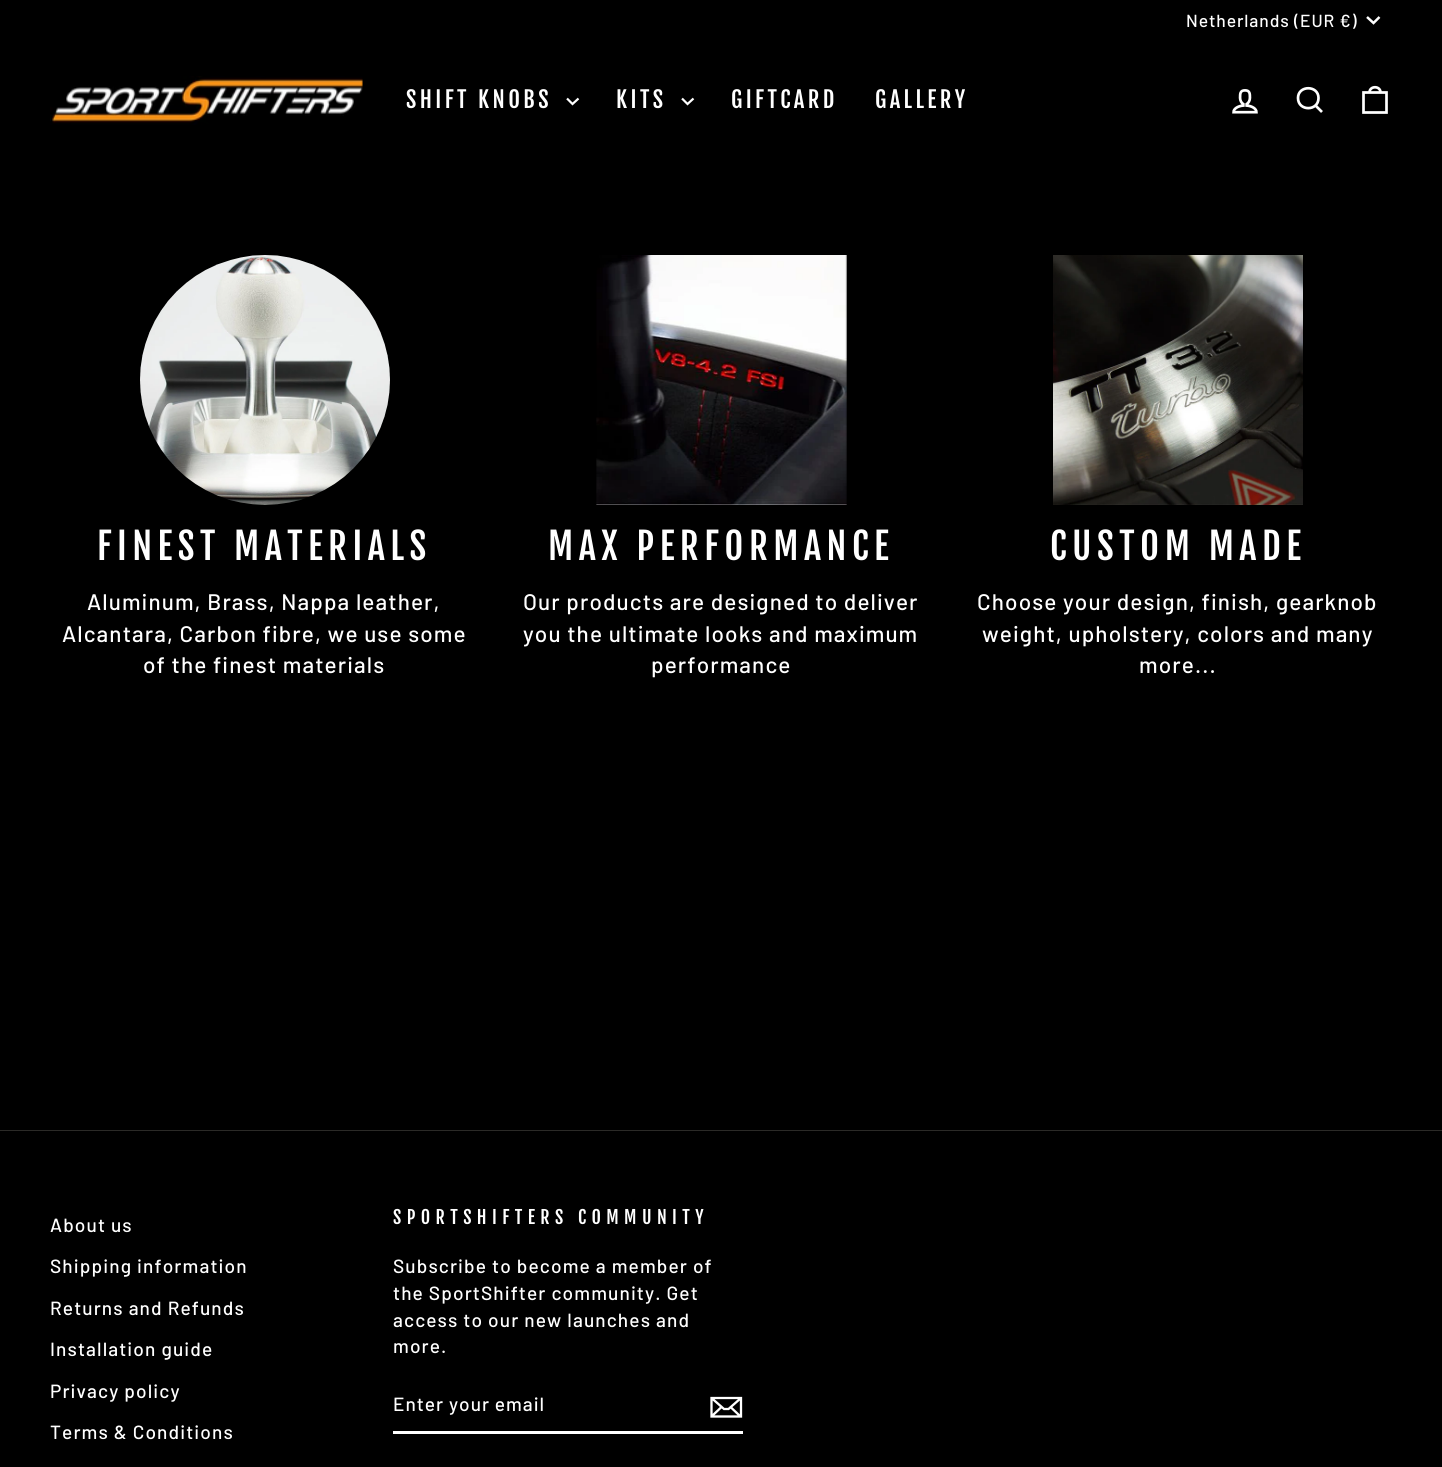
#include <cairo.h>
#include <math.h>
#include <stddef.h>

static cairo_t *c;
static void C(unsigned color){cairo_set_source_rgb(c, (color >> 16) / 255.0, (color >> 8 & 255) / 255.0, (color & 255) / 255.0);}
static void F(const char *family, double size, int italic, int bold){cairo_select_font_face(c, family, italic ? CAIRO_FONT_SLANT_ITALIC : CAIRO_FONT_SLANT_NORMAL,bold ? CAIRO_FONT_WEIGHT_BOLD : CAIRO_FONT_WEIGHT_NORMAL);cairo_set_font_size(c, size);}
static void L(double x, double y, const char *s, double letter, double word){cairo_move_to(c, x, y);while (*s) {char ch[5] = {0};int n = 0;do ch[n++] = *s++; while ((*s & 0xC0) == 0x80);cairo_show_text(c, ch);cairo_rel_move_to(c, letter + word * (*ch == ' '), 0);}}
static void R(double x, double y, double w, double h){cairo_rectangle(c, x, y, w, h);cairo_fill(c);}
static void I(const char *path, double x, double y, double w, double h){cairo_surface_t *image = cairo_image_surface_create_from_png(path);cairo_save(c);cairo_set_source_surface(c, image, x, y);cairo_rectangle(c, x, y, w, h);cairo_fill(c);cairo_restore(c);cairo_surface_destroy(image);}
int main(void) {
cairo_surface_t *surface = cairo_image_surface_create(CAIRO_FORMAT_RGB24, 1442, 1467);
c = cairo_create(surface);
cairo_font_options_t *options = cairo_font_options_create();
cairo_font_options_set_hint_metrics(options, CAIRO_HINT_METRICS_OFF);
cairo_font_options_set_hint_style(options, CAIRO_HINT_STYLE_NONE);
cairo_set_font_options(c, options);
cairo_set_miter_limit(c, 4);
C(0x000000);
cairo_paint(c);
F("Barlow Medium",17.5,0,0);
C(0xffffff);
L(1186,27,"Netherlands (EUR €)",.9,0);
cairo_new_path(c);
cairo_move_to(c,1367,17);
cairo_line_to(c,1373.5,23);
cairo_line_to(c,1379.5,17);
cairo_set_line_width(c,2.5);
cairo_stroke(c);
I("1.png",50,76,313,49);
F("Fjalla One",22.5,0,0);
L(406,108,"SHIFT KNOBS",3.4,0);
cairo_new_path(c);
cairo_move_to(c,567,98.5);
cairo_line_to(c,572.5,104);
cairo_line_to(c,578.5,98.5);
cairo_set_line_width(c,2.2);
cairo_stroke(c);
L(616,108,"KITS",3.4,0);
cairo_new_path(c);
cairo_move_to(c,682,98.5);
cairo_line_to(c,687.5,104);
cairo_line_to(c,693.5,98.5);
cairo_stroke(c);
L(731,108,"GIFTCARD",3.4,0);
L(875,108,"GALLERY",3.4,0);
I("2.png",1232,89,26,25);
cairo_new_path(c);
cairo_move_to(c,1318.5,98);
cairo_curve_to(c,1318.5,111.5,1298,111.5,1298,98);
cairo_curve_to(c,1298,85,1318.5,85,1318.5,98);
cairo_close_path(c);
cairo_move_to(c,1322,112);
cairo_line_to(c,1315.5,105.5);
cairo_set_line_width(c,2.7);
cairo_stroke(c);
cairo_new_path(c);
cairo_move_to(c,1363.5,92.5);
cairo_line_to(c,1386.5,92.5);
cairo_line_to(c,1386.5,112.5);
cairo_line_to(c,1363.5,112.5);
cairo_close_path(c);
cairo_move_to(c,1369.5,92.5);
cairo_curve_to(c,1369.5,85.5,1380.5,85.5,1380.5,92.5);
cairo_stroke(c);
I("3.png",140,255,250,250);
F("Fjalla One",36.5,0,0);
L(97,560,"FINEST MATERIALS",5.5,0);
F("Barlow Medium",22.5,0,0);
L(87,610,"Aluminum, Brass, Nappa leather,",1.1,0);
L(62,642,"Alcantara, Carbon fibre, we use some",1.1,0);
L(143,673,"of the finest materials",1.1,0);
I("4.png",596,255,251,250);
F("Fjalla One",36.5,0,0);
L(548,560,"MAX PERFORMANCE",5.5,0);
F("Barlow Medium",22.5,0,0);
L(523,610,"Our products are designed to deliver",1.1,0);
L(523,642,"you the ultimate looks and maximum",1.1,0);
L(651,673,"performance",1.1,0);
I("5.png",1053,255,250,250);
F("Fjalla One",36.5,0,0);
L(1050,560,"CUSTOM MADE",5.5,0);
F("Barlow Medium",22.5,0,0);
L(977,610,"Choose your design, finish, gearknob",1.1,0);
L(982,642,"weight, upholstery, colors and many",1.1,0);
L(1139,673,"more...",1.1,0);
C(0x2b2a27);
R(0,1130,1442,1);
F("Barlow Medium",19.1,0,0);
C(0xffffff);
L(50,1232,"About us",1.1,0);
L(50,1273,"Shipping information",1.1,0);
L(50,1315,"Returns and Refunds",1.1,0);
L(50,1356,"Installation guide",1.1,0);
L(50,1398,"Privacy policy",1.1,0);
L(50,1439,"Terms & Conditions",1.1,0);
F("Fjalla One",18,0,0);
L(393,1224,"SPORTSHIFTERS COMMUNITY",5.4,0);
F("Barlow Medium",19.1,0,0);
L(393,1273,"Subscribe to become a member of",1.1,0);
L(393,1300,"the SportShifter community. Get",1.1,0);
L(393,1327,"access to our new launches and",1.1,0);
L(393,1353,"more.",1.1,0);
R(393,1431,350,3);
L(393,1411,"Enter your email",1,0);
cairo_new_path(c);
cairo_move_to(c,741,1416.5);
cairo_line_to(c,711.5,1416.5);
cairo_line_to(c,711.5,1398);
cairo_line_to(c,741,1398);
cairo_close_path(c);
cairo_move_to(c,711.5,1398);
cairo_line_to(c,724,1409);
cairo_line_to(c,728.5,1409);
cairo_line_to(c,741,1398);
cairo_move_to(c,721.5,1407);
cairo_line_to(c,712,1416);
cairo_move_to(c,740.5,1416.5);
cairo_line_to(c,730.5,1407);
cairo_set_line_width(c,2.3);
cairo_stroke(c);
cairo_surface_write_to_png(surface, "o.png");
cairo_font_options_destroy(options);
cairo_destroy(c);
cairo_surface_destroy(surface);
return 0;
}
